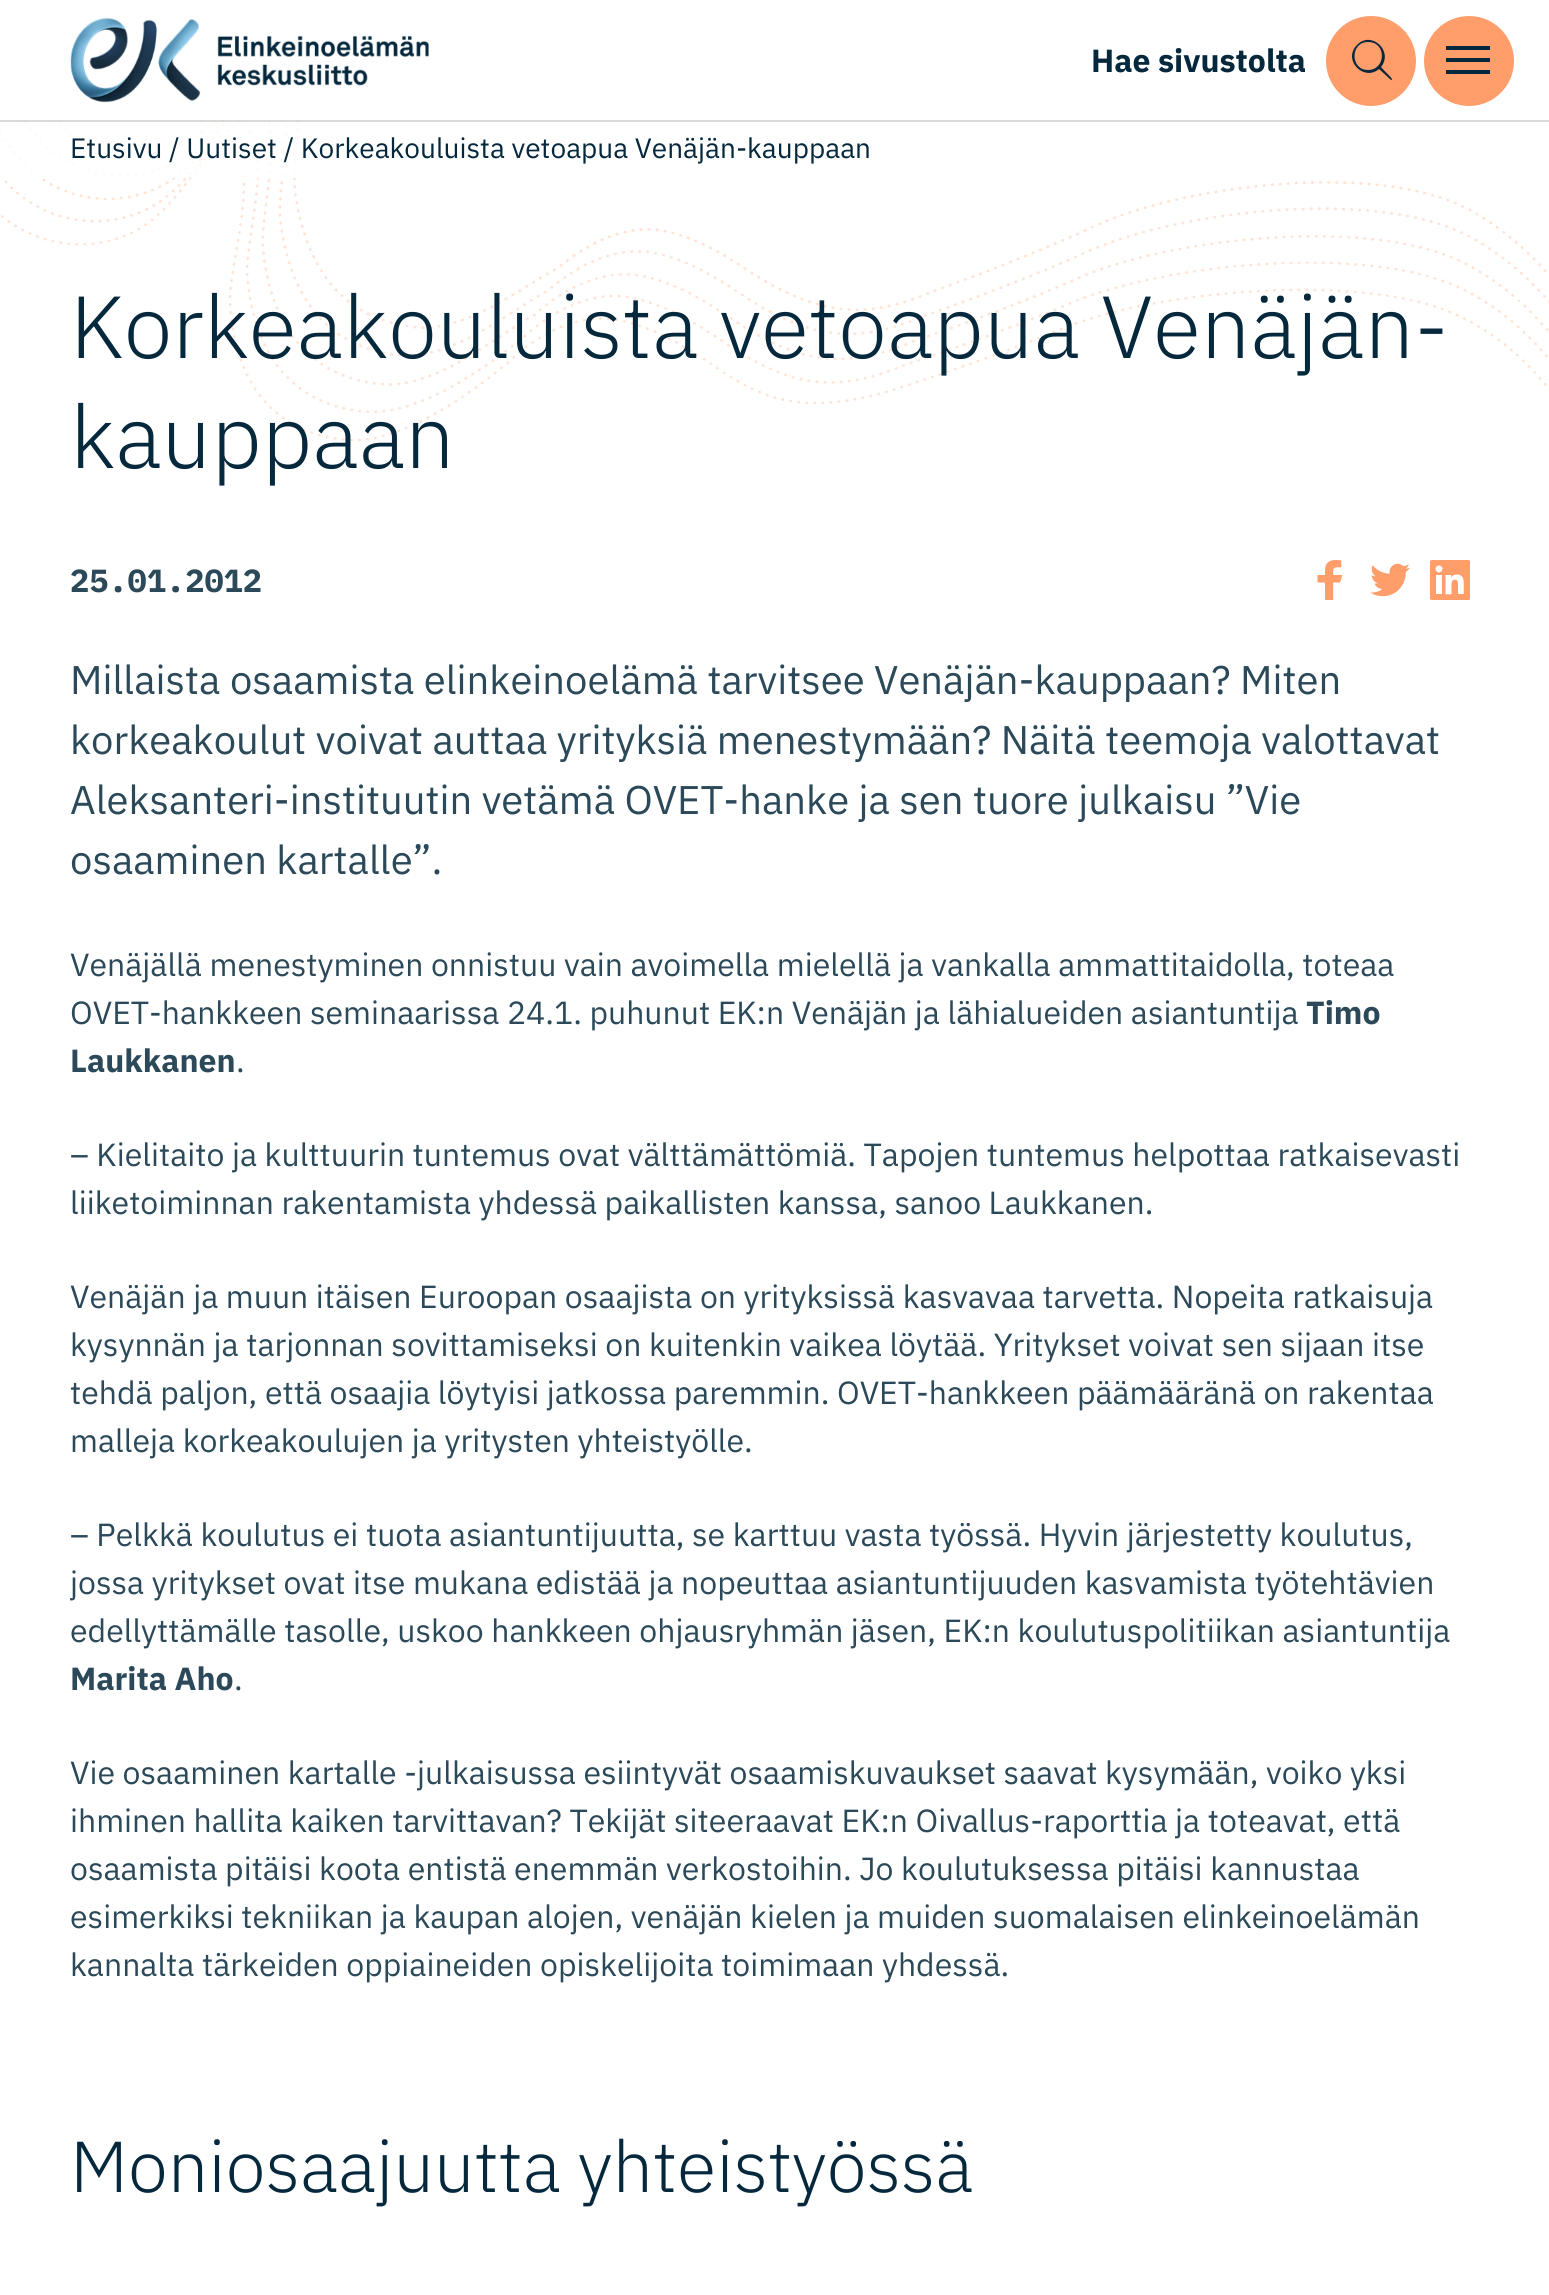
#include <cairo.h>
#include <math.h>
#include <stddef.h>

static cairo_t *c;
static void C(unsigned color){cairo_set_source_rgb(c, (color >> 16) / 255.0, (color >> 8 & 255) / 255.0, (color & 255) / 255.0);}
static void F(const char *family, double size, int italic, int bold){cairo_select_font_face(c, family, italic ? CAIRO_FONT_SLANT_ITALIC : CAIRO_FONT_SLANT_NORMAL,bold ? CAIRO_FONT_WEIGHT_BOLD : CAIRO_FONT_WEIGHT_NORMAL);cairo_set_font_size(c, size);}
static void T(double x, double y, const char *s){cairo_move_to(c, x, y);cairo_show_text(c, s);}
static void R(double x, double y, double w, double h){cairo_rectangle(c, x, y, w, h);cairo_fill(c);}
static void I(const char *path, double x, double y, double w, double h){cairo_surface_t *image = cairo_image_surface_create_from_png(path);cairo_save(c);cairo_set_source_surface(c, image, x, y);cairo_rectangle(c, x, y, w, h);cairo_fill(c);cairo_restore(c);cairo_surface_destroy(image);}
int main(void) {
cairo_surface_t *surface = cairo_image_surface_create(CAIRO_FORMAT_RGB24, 1549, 2295);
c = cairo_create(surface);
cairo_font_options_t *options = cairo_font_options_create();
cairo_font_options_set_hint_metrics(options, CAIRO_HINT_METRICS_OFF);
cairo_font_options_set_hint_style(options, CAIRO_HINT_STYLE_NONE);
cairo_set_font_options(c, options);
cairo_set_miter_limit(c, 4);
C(0xffffff);
cairo_paint(c);
I("2.png",0,120,1549,322);
cairo_set_source_rgba(c,1,1,1,0.8);
R(0,120,300,58);
cairo_set_source_rgba(c,0,0,0,0.15);
R(0,120,1549,2);
I("1.png",70,17,359,86);
F("IBM Plex Sans",32,0,1);
C(0x06283d);
T(1091,72,"Hae sivustolta");
C(0xff9e6b);
cairo_new_path(c);
cairo_arc(c,1371,61,45,0,2 * M_PI);
cairo_fill(c);
C(0x06283d);
cairo_new_path(c);
cairo_move_to(c,1391,80);
cairo_line_to(c,1379,69);
cairo_curve_to(c,1364,82,1342,60,1357,45);
cairo_curve_to(c,1371,30,1394,51,1381,67);
cairo_curve_to(c,1386,73,1395,80,1391,80);
cairo_close_path(c);
cairo_move_to(c,1368,42);
cairo_curve_to(c,1350,42,1350,70,1368,70);
cairo_curve_to(c,1386,70,1387,42,1368,42);
cairo_close_path(c);
cairo_fill(c);
C(0xff9e6b);
cairo_arc(c,1469,61,45,0,2 * M_PI);
cairo_fill(c);
C(0x06283d);
R(1446,46,44,4);
R(1446,58,44,4);
R(1446,70,44,4);
F("IBM Plex Sans",28,0,0);
T(70,158,"Etusivu / Uutiset / Korkeakouluista vetoapua Venäjän-kauppaan");
F("IBM Plex Sans Light",88,0,0);
T(70,358,"Korkeakouluista vetoapua Venäjän-");
T(70,468,"kauppaan");
F("IBM Plex Mono",32,0,1);
C(0x2b4959);
T(70,592,"25.01.2012");
I("3.png",1317,560,26,40);
I("4.png",1370,563,40,34);
I("5.png",1430,560,40,40);
F("IBM Plex Sans",40,0,0);
T(70,694,"Millaista osaamista elinkeinoelämä tarvitsee Venäjän-kauppaan? Miten");
T(70,754,"korkeakoulut voivat auttaa yrityksiä menestymään? Näitä teemoja valottavat");
T(70,814,"Aleksanteri-instituutin vetämä OVET-hanke ja sen tuore julkaisu ”Vie");
T(70,874,"osaaminen kartalle”.");
F("IBM Plex Sans",32,0,0);
T(70,976,"Venäjällä menestyminen onnistuu vain avoimella mielellä ja vankalla ammattitaidolla, toteaa");
T(70,1024,"OVET-hankkeen seminaarissa 24.1. puhunut EK:n Venäjän ja lähialueiden asiantuntija");
F("IBM Plex Sans",32,0,1);
T(1306,1024,"Timo");
T(70,1072,"Laukkanen");
F("IBM Plex Sans",32,0,0);
T(236,1072,".");
T(70,1166,"– Kielitaito ja kulttuurin tuntemus ovat välttämättömiä. Tapojen tuntemus helpottaa ratkaisevasti");
T(70,1214,"liiketoiminnan rakentamista yhdessä paikallisten kanssa, sanoo Laukkanen.");
T(70,1308,"Venäjän ja muun itäisen Euroopan osaajista on yrityksissä kasvavaa tarvetta. Nopeita ratkaisuja");
T(70,1356,"kysynnän ja tarjonnan sovittamiseksi on kuitenkin vaikea löytää. Yritykset voivat sen sijaan itse");
T(70,1404,"tehdä paljon, että osaajia löytyisi jatkossa paremmin. OVET-hankkeen päämääränä on rakentaa");
T(70,1452,"malleja korkeakoulujen ja yritysten yhteistyölle.");
T(70,1546,"– Pelkkä koulutus ei tuota asiantuntijuutta, se karttuu vasta työssä. Hyvin järjestetty koulutus,");
T(70,1594,"jossa yritykset ovat itse mukana edistää ja nopeuttaa asiantuntijuuden kasvamista työtehtävien");
T(70,1642,"edellyttämälle tasolle, uskoo hankkeen ohjausryhmän jäsen, EK:n koulutuspolitiikan asiantuntija");
F("IBM Plex Sans",32,0,1);
T(70,1690,"Marita Aho");
F("IBM Plex Sans",32,0,0);
T(234,1690,".");
T(70,1784,"Vie osaaminen kartalle -julkaisussa esiintyvät osaamiskuvaukset saavat kysymään, voiko yksi");
T(70,1832,"ihminen hallita kaiken tarvittavan? Tekijät siteeraavat EK:n Oivallus-raporttia ja toteavat, että");
T(70,1880,"osaamista pitäisi koota entistä enemmän verkostoihin. Jo koulutuksessa pitäisi kannustaa");
T(70,1928,"esimerkiksi tekniikan ja kaupan alojen, venäjän kielen ja muiden suomalaisen elinkeinoelämän");
T(70,1976,"kannalta tärkeiden oppiaineiden opiskelijoita toimimaan yhdessä.");
F("IBM Plex Sans Light",72,0,0);
C(0x06283d);
T(70,2192,"Moniosaajuutta yhteistyössä");
cairo_surface_write_to_png(surface, "o.png");
cairo_font_options_destroy(options);
cairo_destroy(c);
cairo_surface_destroy(surface);
return 0;
}
